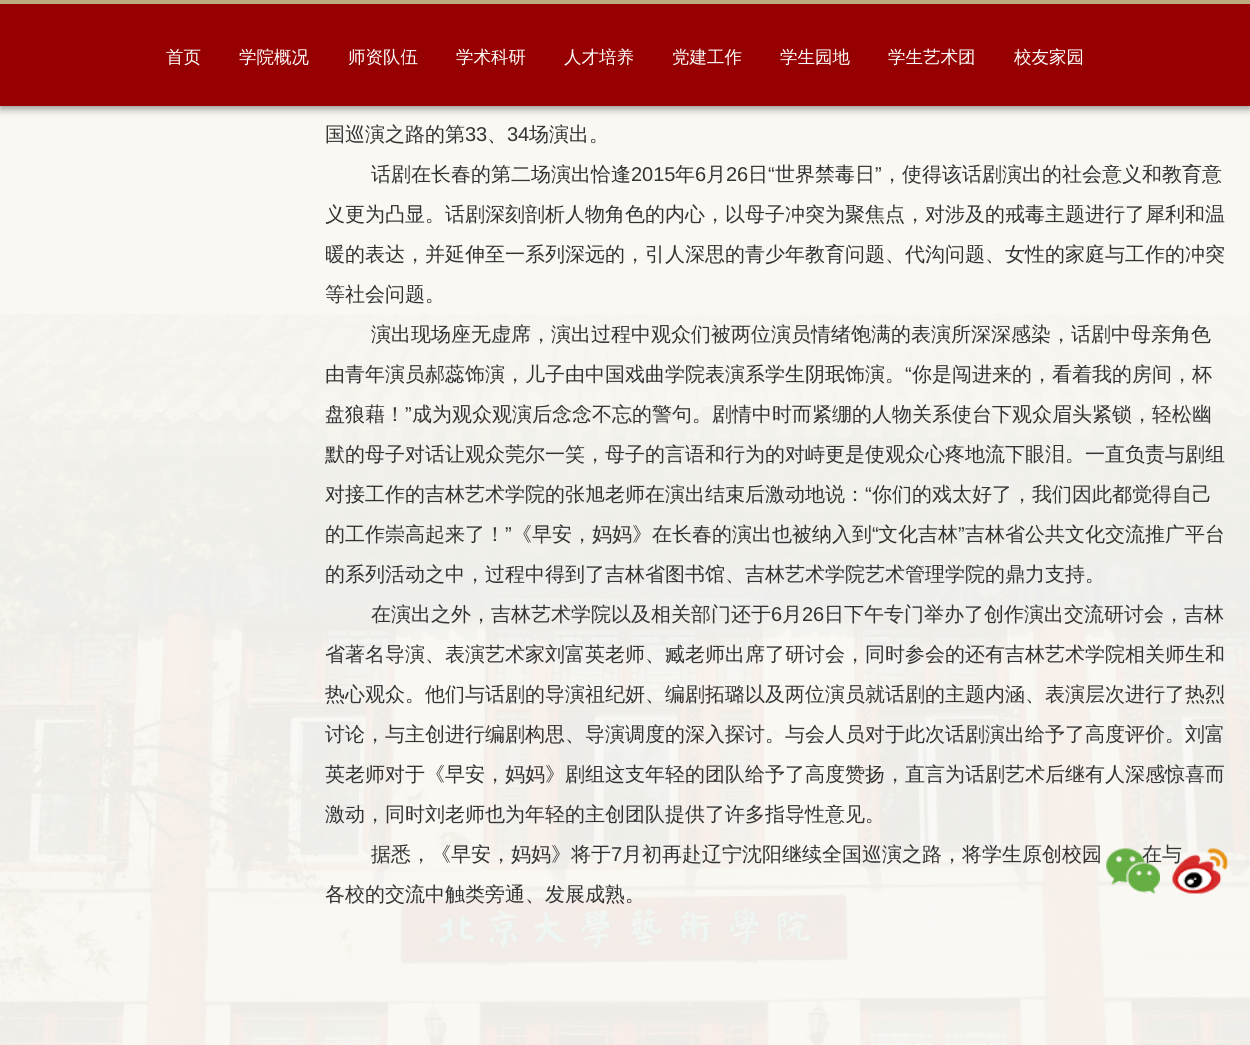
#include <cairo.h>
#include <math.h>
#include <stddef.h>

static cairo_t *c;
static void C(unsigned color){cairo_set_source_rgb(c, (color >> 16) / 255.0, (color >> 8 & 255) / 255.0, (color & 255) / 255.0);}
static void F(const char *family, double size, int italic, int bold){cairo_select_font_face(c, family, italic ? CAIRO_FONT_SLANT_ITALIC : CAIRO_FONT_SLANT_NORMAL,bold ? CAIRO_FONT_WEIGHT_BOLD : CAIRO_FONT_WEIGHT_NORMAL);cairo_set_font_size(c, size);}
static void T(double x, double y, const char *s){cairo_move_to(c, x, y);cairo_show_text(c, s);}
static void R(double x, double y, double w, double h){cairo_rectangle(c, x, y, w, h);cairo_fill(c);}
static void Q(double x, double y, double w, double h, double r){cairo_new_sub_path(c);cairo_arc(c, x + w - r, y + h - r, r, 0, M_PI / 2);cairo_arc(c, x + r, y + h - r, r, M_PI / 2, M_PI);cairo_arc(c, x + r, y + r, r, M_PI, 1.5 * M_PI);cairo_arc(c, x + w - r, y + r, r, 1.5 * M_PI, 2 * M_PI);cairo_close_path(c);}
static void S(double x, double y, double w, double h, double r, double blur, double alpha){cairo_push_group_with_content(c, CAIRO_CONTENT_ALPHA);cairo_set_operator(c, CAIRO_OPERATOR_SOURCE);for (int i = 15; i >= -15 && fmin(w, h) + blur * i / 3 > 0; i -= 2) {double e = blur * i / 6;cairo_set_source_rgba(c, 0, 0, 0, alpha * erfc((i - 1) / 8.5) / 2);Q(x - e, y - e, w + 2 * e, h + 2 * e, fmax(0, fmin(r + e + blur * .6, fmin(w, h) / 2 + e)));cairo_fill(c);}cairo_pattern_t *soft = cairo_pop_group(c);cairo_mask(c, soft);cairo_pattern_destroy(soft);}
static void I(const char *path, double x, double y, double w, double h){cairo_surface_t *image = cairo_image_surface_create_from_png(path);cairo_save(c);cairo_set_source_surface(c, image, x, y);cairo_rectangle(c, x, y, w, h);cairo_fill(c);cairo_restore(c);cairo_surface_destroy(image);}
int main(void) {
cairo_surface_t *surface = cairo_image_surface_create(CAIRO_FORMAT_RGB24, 1250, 1045);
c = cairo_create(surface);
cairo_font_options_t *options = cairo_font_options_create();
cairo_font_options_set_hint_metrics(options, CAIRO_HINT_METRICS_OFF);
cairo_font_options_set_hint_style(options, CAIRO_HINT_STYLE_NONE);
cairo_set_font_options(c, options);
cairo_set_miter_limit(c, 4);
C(0xf9f8f3);
cairo_paint(c);
C(0x000000);
S(0,3,1250,106,0,4,.4);
C(0x970000);
R(0,4,1250,102);
C(0xbda97e);
R(0,0,1250,4);
F("WenQuanYi Zen Hei Medium",17.5,0,0);
C(0xffffff);
T(166,63,"首页");
T(239,63,"学院概况");
T(348,63,"师资队伍");
T(456,63,"学术科研");
T(564,63,"人才培养");
T(672,63,"党建工作");
T(780,63,"学生园地");
T(888,63,"学生艺术团");
T(1014,63,"校友家园");
I("1.png",0,314,1250,731);
F("WenQuanYi Zen Hei Medium",20,0,0);
C(0x333333);
T(325,141,"国巡演之路的第");
F("Liberation Sans",20,0,0);
T(465,141,"33");
F("WenQuanYi Zen Hei Medium",20,0,0);
T(487,141,"、");
F("Liberation Sans",20,0,0);
T(507,141,"34");
F("WenQuanYi Zen Hei Medium",20,0,0);
T(529,141,"场演出。");
T(371,181,"话剧在长春的第二场演出恰逢");
F("Liberation Sans",20,0,0);
T(631,181,"2015");
F("WenQuanYi Zen Hei Medium",20,0,0);
T(675,181,"年");
F("Liberation Sans",20,0,0);
T(695,181,"6");
F("WenQuanYi Zen Hei Medium",20,0,0);
T(706,181,"月");
F("Liberation Sans",20,0,0);
T(726,181,"26");
F("WenQuanYi Zen Hei Medium",20,0,0);
T(748,181,"日");
F("Liberation Sans",20,0,0);
T(768,181,"“");
F("WenQuanYi Zen Hei Medium",20,0,0);
T(775,181,"世界禁毒日");
F("Liberation Sans",20,0,0);
T(875,181,"”");
F("WenQuanYi Zen Hei Medium",20,0,0);
T(882,181,"，使得该话剧演出的社会意义和教育意");
T(325,221,"义更为凸显。话剧深刻剖析人物角色的内心，以母子冲突为聚焦点，对涉及的戒毒主题进行了犀利和温");
T(325,261,"暖的表达，并延伸至一系列深远的，引人深思的青少年教育问题、代沟问题、女性的家庭与工作的冲突");
T(325,301,"等社会问题。");
T(371,341,"演出现场座无虚席，演出过程中观众们被两位演员情绪饱满的表演所深深感染，话剧中母亲角色");
T(325,381,"由青年演员郝蕊饰演，儿子由中国戏曲学院表演系学生阴珉饰演。");
F("Liberation Sans",20,0,0);
T(905,381,"“");
F("WenQuanYi Zen Hei Medium",20,0,0);
T(912,381,"你是闯进来的，看着我的房间，杯");
T(325,421,"盘狼藉！");
F("Liberation Sans",20,0,0);
T(405,421,"”");
F("WenQuanYi Zen Hei Medium",20,0,0);
T(412,421,"成为观众观演后念念不忘的警句。剧情中时而紧绷的人物关系使台下观众眉头紧锁，轻松幽");
T(325,461,"默的母子对话让观众莞尔一笑，母子的言语和行为的对峙更是使观众心疼地流下眼泪。一直负责与剧组");
T(325,501,"对接工作的吉林艺术学院的张旭老师在演出结束后激动地说：");
F("Liberation Sans",20,0,0);
T(865,501,"“");
F("WenQuanYi Zen Hei Medium",20,0,0);
T(872,501,"你们的戏太好了，我们因此都觉得自己");
T(325,541,"的工作崇高起来了！");
F("Liberation Sans",20,0,0);
T(505,541,"”");
F("WenQuanYi Zen Hei Medium",20,0,0);
T(512,541,"《早安，妈妈》在长春的演出也被纳入到");
F("Liberation Sans",20,0,0);
T(872,541,"“");
F("WenQuanYi Zen Hei Medium",20,0,0);
T(878,541,"文化吉林");
F("Liberation Sans",20,0,0);
T(958,541,"”");
F("WenQuanYi Zen Hei Medium",20,0,0);
T(965,541,"吉林省公共文化交流推广平台");
T(325,581,"的系列活动之中，过程中得到了吉林省图书馆、吉林艺术学院艺术管理学院的鼎力支持。");
T(371,621,"在演出之外，吉林艺术学院以及相关部门还于");
F("Liberation Sans",20,0,0);
T(771,621,"6");
F("WenQuanYi Zen Hei Medium",20,0,0);
T(782,621,"月");
F("Liberation Sans",20,0,0);
T(802,621,"26");
F("WenQuanYi Zen Hei Medium",20,0,0);
T(824,621,"日下午专门举办了创作演出交流研讨会，吉林");
T(325,661,"省著名导演、表演艺术家刘富英老师、臧老师出席了研讨会，同时参会的还有吉林艺术学院相关师生和");
T(325,701,"热心观众。他们与话剧的导演祖纪妍、编剧拓璐以及两位演员就话剧的主题内涵、表演层次进行了热烈");
T(325,741,"讨论，与主创进行编剧构思、导演调度的深入探讨。与会人员对于此次话剧演出给予了高度评价。刘富");
T(325,781,"英老师对于《早安，妈妈》剧组这支年轻的团队给予了高度赞扬，直言为话剧艺术后继有人深感惊喜而");
T(325,821,"激动，同时刘老师也为年轻的主创团队提供了许多指导性意见。");
T(371,861,"据悉，《早安，妈妈》将于");
F("Liberation Sans",20,0,0);
T(611,861,"7");
F("WenQuanYi Zen Hei Medium",20,0,0);
T(622,861,"月初再赴辽宁沈阳继续全国巡演之路，将学生原创校园");
T(1142,861,"在与");
T(325,901,"各校的交流中触类旁通、发展成熟。");
I("2.png",1106,848,54,46);
I("3.png",1172,848,56,46);
cairo_surface_write_to_png(surface, "o.png");
cairo_font_options_destroy(options);
cairo_destroy(c);
cairo_surface_destroy(surface);
return 0;
}
